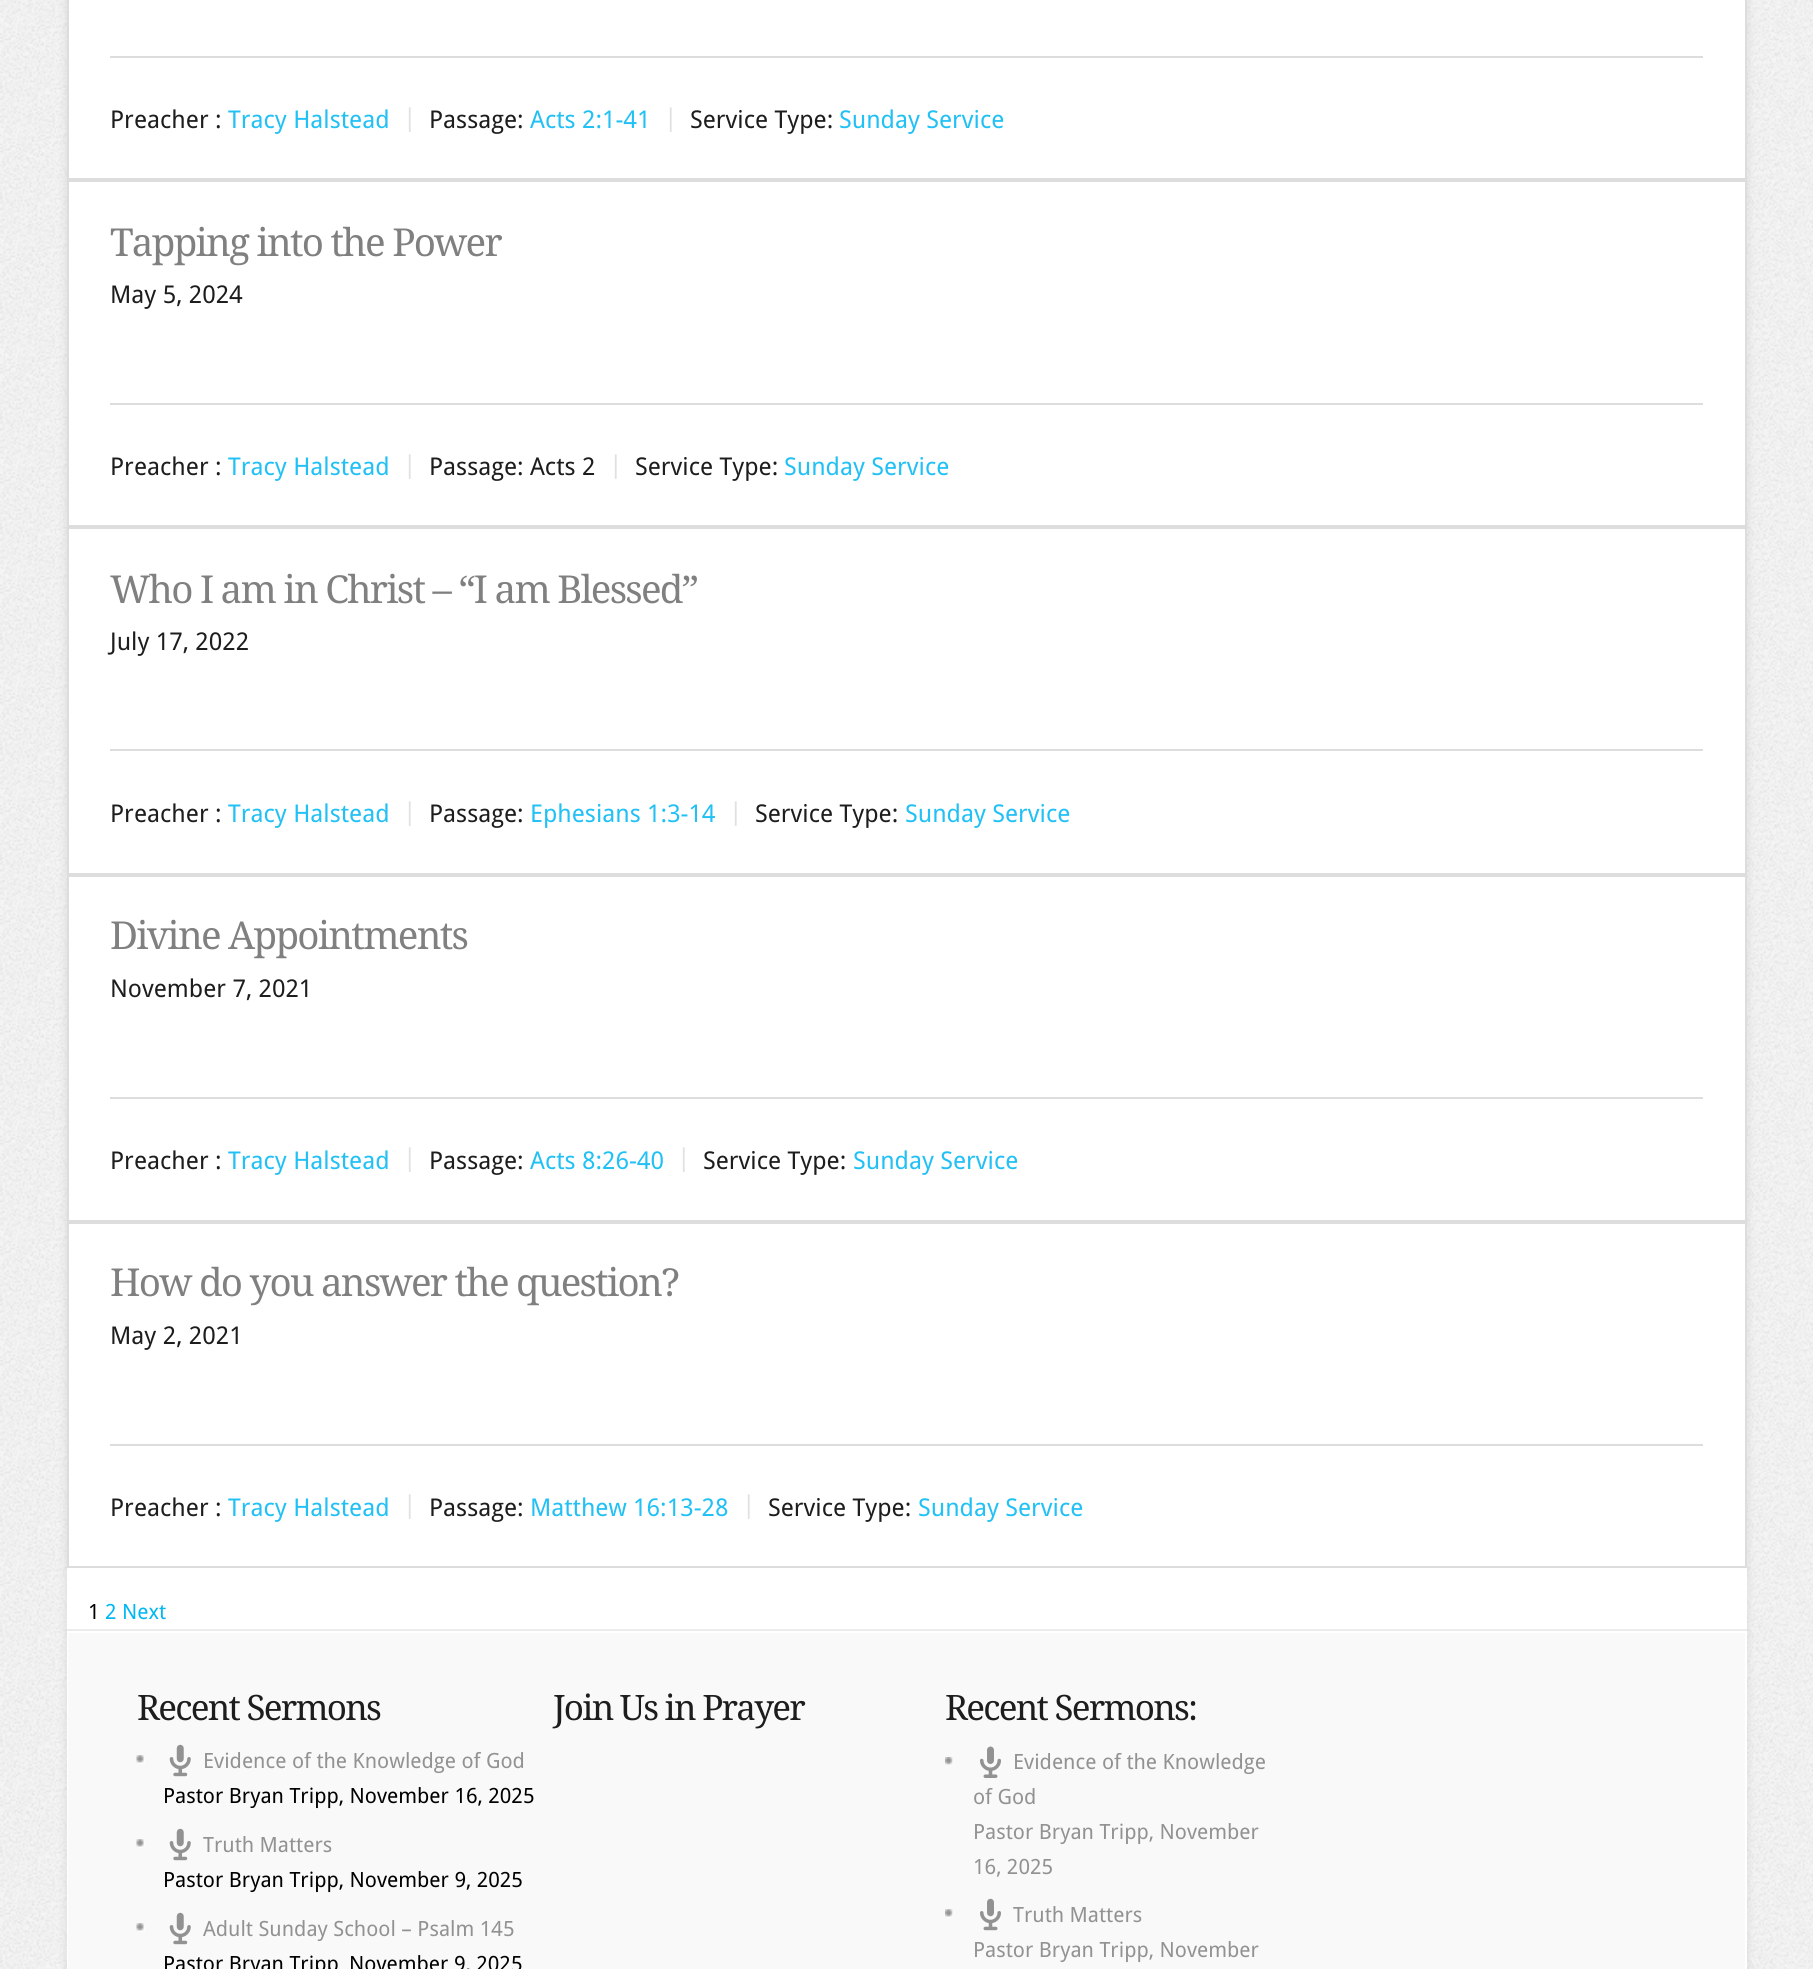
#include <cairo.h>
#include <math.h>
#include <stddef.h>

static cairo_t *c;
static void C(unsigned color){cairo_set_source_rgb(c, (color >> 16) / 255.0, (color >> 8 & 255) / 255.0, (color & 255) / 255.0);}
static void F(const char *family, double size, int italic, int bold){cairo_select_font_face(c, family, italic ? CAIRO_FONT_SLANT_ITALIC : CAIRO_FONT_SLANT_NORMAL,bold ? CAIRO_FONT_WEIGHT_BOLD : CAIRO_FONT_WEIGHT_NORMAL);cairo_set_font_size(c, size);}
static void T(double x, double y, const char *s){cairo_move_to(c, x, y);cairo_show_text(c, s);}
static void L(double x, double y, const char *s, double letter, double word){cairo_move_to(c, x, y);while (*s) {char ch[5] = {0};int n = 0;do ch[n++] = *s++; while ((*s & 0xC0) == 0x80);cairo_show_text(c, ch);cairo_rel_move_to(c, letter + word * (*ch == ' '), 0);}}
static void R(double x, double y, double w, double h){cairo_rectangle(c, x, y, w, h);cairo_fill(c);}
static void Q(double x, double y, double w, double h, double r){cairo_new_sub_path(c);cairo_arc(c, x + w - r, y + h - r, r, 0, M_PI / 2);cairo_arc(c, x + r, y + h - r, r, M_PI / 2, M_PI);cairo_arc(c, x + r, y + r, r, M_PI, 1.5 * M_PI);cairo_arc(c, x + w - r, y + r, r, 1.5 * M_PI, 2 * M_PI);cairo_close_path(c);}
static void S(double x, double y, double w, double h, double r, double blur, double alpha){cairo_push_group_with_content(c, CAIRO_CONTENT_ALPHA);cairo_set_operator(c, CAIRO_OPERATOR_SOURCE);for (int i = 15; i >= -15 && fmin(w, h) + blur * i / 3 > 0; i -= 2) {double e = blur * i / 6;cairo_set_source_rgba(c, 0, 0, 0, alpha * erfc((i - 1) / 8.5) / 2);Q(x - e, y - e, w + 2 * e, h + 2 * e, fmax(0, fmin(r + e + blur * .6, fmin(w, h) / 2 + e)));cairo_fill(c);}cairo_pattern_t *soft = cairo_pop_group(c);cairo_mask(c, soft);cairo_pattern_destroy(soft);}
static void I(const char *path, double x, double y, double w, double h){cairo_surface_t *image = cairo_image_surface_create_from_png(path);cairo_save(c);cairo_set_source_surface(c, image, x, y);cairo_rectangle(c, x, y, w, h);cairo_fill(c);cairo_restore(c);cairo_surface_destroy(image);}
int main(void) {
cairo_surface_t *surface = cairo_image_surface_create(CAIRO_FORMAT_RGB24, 1813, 1969);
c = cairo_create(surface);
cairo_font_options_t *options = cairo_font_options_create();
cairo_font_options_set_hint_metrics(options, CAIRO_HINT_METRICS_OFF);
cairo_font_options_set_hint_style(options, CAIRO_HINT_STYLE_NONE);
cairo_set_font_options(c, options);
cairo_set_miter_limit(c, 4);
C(0xf4f4f4);
cairo_paint(c);
I("1.png",0,0,1813,1969);
C(0x000000);
S(67,-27,1680,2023,12,5,.1);
C(0xffffff);
R(67,0,1680,1969);
cairo_rectangle(c,68,-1,1678,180);
C(0xdddddd);
cairo_stroke(c);
R(110,56,1593,2);
F("Droid Sans",24.5,0,0);
C(0x1d1d1d);
T(110,128,"Preacher :");
C(0x21c0f5);
T(228,128,"Tracy Halstead");
C(0xe1e1e1);
T(403,126,"|");
C(0x1d1d1d);
T(429,128,"Passage:");
C(0x21c0f5);
T(530,128,"Acts 2:1-41");
C(0xe1e1e1);
T(664,126,"|");
C(0x1d1d1d);
T(690,128,"Service Type:");
C(0x21c0f5);
T(839,128,"Sunday Service");
cairo_rectangle(c,68,181,1678,345);
C(0xdddddd);
cairo_stroke(c);
F("Droid Serif",38.5,0,0);
C(0x808080);
L(110,256,"Tapping into the Power",-1.75,0);
F("Droid Sans",24.5,0,0);
C(0x1d1d1d);
T(110,303,"May 5, 2024");
C(0xdddddd);
R(110,403,1593,2);
C(0x1d1d1d);
T(110,475,"Preacher :");
C(0x21c0f5);
T(228,475,"Tracy Halstead");
C(0xe1e1e1);
T(403,473,"|");
C(0x1d1d1d);
T(429,475,"Passage: Acts 2");
C(0xe1e1e1);
T(609,473,"|");
C(0x1d1d1d);
T(635,475,"Service Type:");
C(0x21c0f5);
T(784,475,"Sunday Service");
cairo_rectangle(c,68,528,1678,346);
C(0xdddddd);
cairo_stroke(c);
F("Droid Serif",38.5,0,0);
C(0x808080);
L(110,603,"Who I am in Christ – “I am Blessed”",-1.75,0);
F("Droid Sans",24.5,0,0);
C(0x1d1d1d);
T(110,650,"July 17, 2022");
C(0xdddddd);
R(110,749,1593,2);
C(0x1d1d1d);
T(110,822,"Preacher :");
C(0x21c0f5);
T(228,822,"Tracy Halstead");
C(0xe1e1e1);
T(403,820,"|");
C(0x1d1d1d);
T(429,822,"Passage:");
C(0x21c0f5);
T(530,822,"Ephesians 1:3-14");
C(0xe1e1e1);
T(729,820,"|");
C(0x1d1d1d);
T(755,822,"Service Type:");
C(0x21c0f5);
T(905,822,"Sunday Service");
cairo_rectangle(c,68,876,1678,345);
C(0xdddddd);
cairo_stroke(c);
F("Droid Serif",38.5,0,0);
C(0x808080);
L(110,949,"Divine Appointments",-1.75,0);
F("Droid Sans",24.5,0,0);
C(0x1d1d1d);
T(110,997,"November 7, 2021");
C(0xdddddd);
R(110,1097,1593,2);
C(0x1d1d1d);
T(110,1169,"Preacher :");
C(0x21c0f5);
T(228,1169,"Tracy Halstead");
C(0xe1e1e1);
T(403,1166,"|");
C(0x1d1d1d);
T(429,1169,"Passage:");
C(0x21c0f5);
T(530,1169,"Acts 8:26-40");
C(0xe1e1e1);
T(677,1166,"|");
C(0x1d1d1d);
T(703,1169,"Service Type:");
C(0x21c0f5);
T(853,1169,"Sunday Service");
cairo_rectangle(c,68,1223,1678,344);
C(0xdddddd);
cairo_stroke(c);
F("Droid Serif",38.5,0,0);
C(0x808080);
L(110,1296,"How do you answer the question?",-1.75,0);
F("Droid Sans",24.5,0,0);
C(0x1d1d1d);
T(110,1344,"May 2, 2021");
C(0xdddddd);
R(110,1444,1593,2);
C(0x1d1d1d);
T(110,1516,"Preacher :");
C(0x21c0f5);
T(228,1516,"Tracy Halstead");
C(0xe1e1e1);
T(403,1513,"|");
C(0x1d1d1d);
T(429,1516,"Passage:");
C(0x21c0f5);
T(530,1516,"Matthew 16:13-28");
C(0xe1e1e1);
T(742,1513,"|");
C(0x1d1d1d);
T(768,1516,"Service Type:");
C(0x21c0f5);
T(918,1516,"Sunday Service");
F("Droid Sans",21,0,0);
C(0x000000);
T(88,1619,"1");
C(0x00b7f3);
T(105,1619,"2 Next");
C(0xf9f9f9);
R(68,1633,1677,336);
F("Droid Serif",35,0,0);
C(0x1d1d1d);
L(137,1720,"Recent Sermons",-1.75,0);
I("2.png",136,1755,9,9);
I("3.png",169,1744,22,33);
F("Droid Sans",21,0,0);
C(0x929292);
T(203,1768,"Evidence of the Knowledge of God");
C(0x000000);
T(163,1803,"Pastor Bryan Tripp, November 16, 2025");
I("2.png",136,1839,9,9);
I("3.png",169,1828,22,33);
C(0x929292);
T(203,1852,"Truth Matters");
C(0x000000);
T(163,1887,"Pastor Bryan Tripp, November 9, 2025");
I("2.png",136,1923,9,9);
I("3.png",169,1912,22,33);
C(0x929292);
T(203,1936,"Adult Sunday School – Psalm 145");
C(0x000000);
T(163,1971,"Pastor Bryan Tripp");
T(349,1971,"November 9, 2025");
C(0xececec);
R(67,1629,1680,2);
F("Droid Serif",35,0,0);
C(0x1d1d1d);
L(553,1720,"Join Us in Prayer",-1.75,0);
L(945,1720,"Recent Sermons:",-1.75,0);
I("4.png",945,1757,8,8);
I("5.png",980,1746,21,32);
F("Droid Sans",21,0,0);
C(0x929292);
T(1013,1769,"Evidence of the Knowledge");
T(973,1804,"of God");
T(973,1839,"Pastor Bryan Tripp, November");
T(973,1874,"16, 2025");
I("6.png",945,1909,8,9);
I("7.png",980,1898,21,33);
T(1013,1922,"Truth Matters");
T(973,1957,"Pastor Bryan Tripp, November");
cairo_surface_write_to_png(surface, "o.png");
cairo_font_options_destroy(options);
cairo_destroy(c);
cairo_surface_destroy(surface);
return 0;
}
